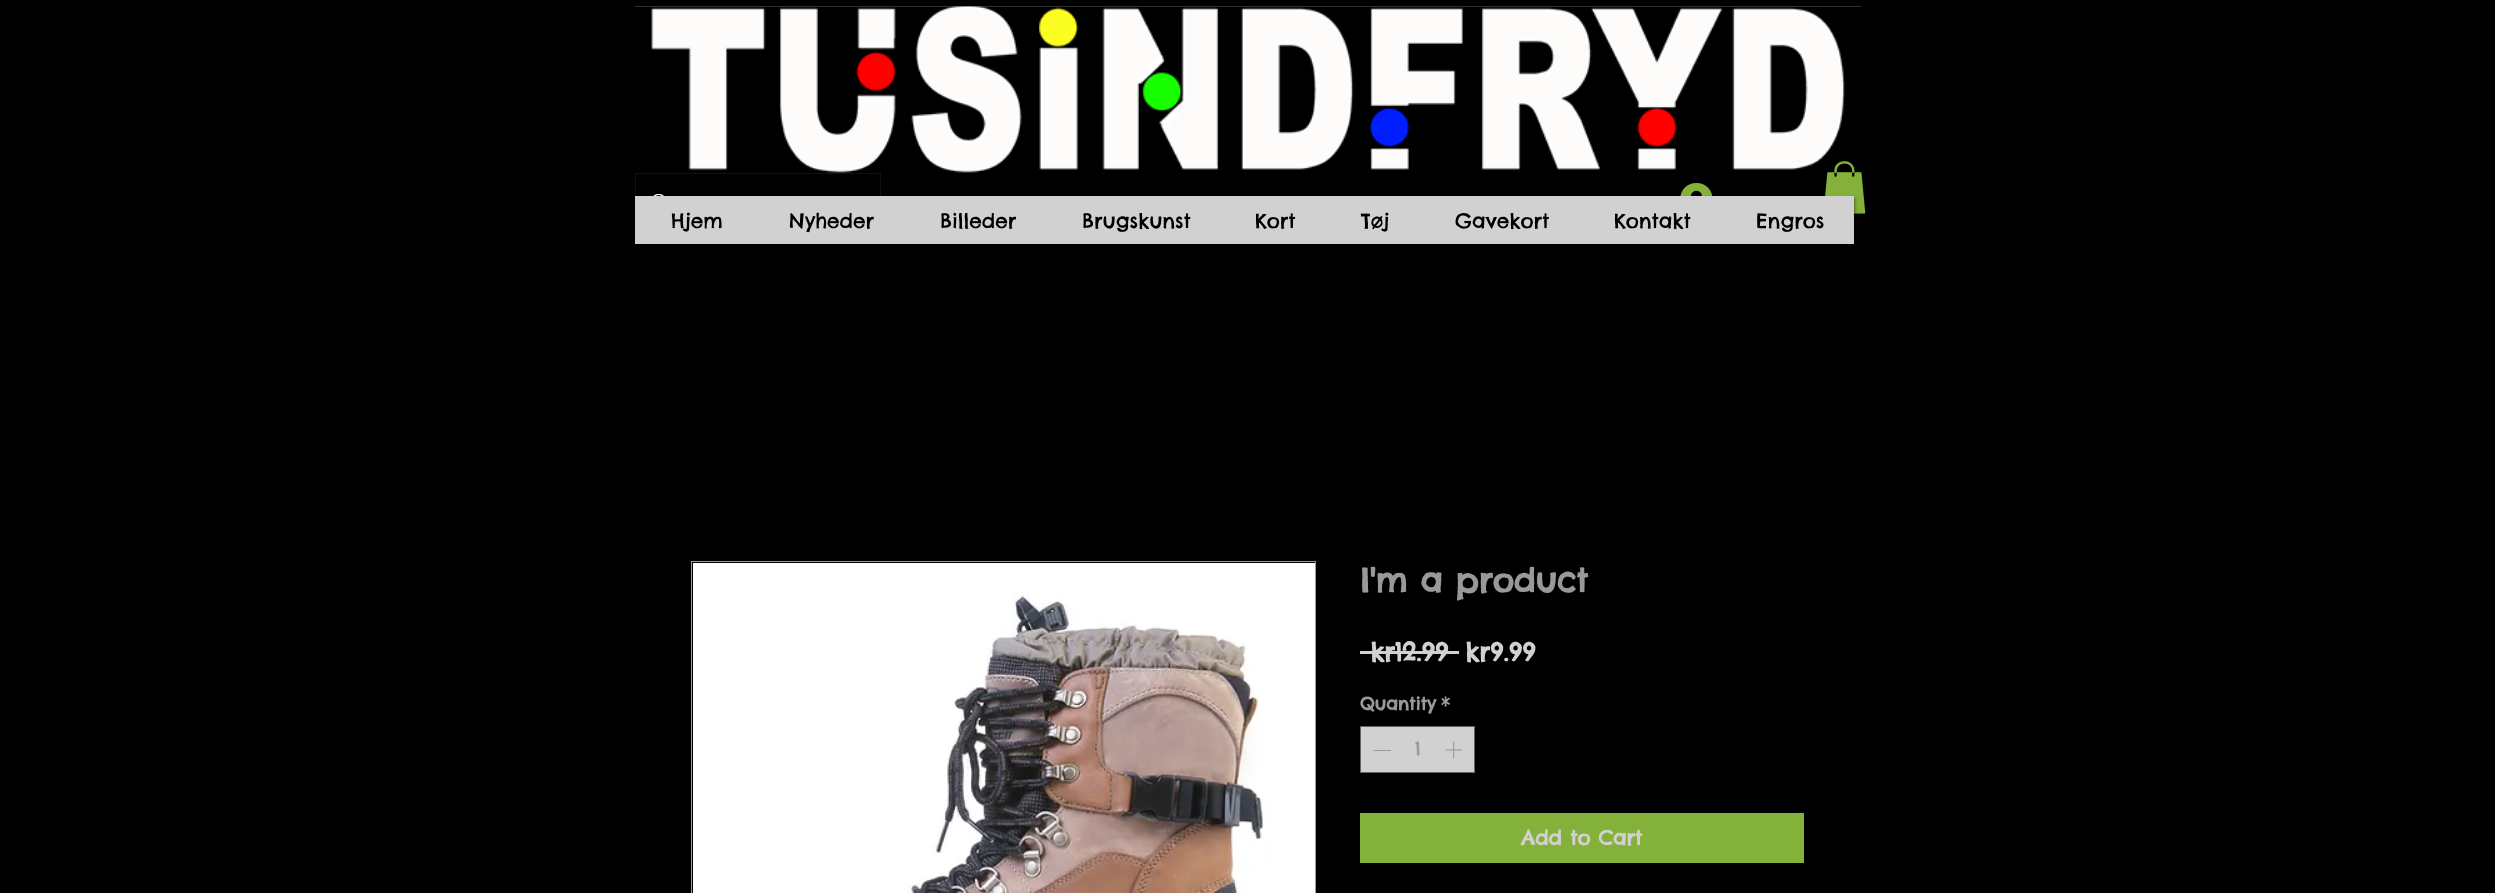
#include <cairo.h>
#include <math.h>
#include <stddef.h>

static cairo_t *c;
static void C(unsigned color){cairo_set_source_rgb(c, (color >> 16) / 255.0, (color >> 8 & 255) / 255.0, (color & 255) / 255.0);}
static void F(const char *family, double size, int italic, int bold){cairo_select_font_face(c, family, italic ? CAIRO_FONT_SLANT_ITALIC : CAIRO_FONT_SLANT_NORMAL,bold ? CAIRO_FONT_WEIGHT_BOLD : CAIRO_FONT_WEIGHT_NORMAL);cairo_set_font_size(c, size);}
static void T(double x, double y, const char *s){cairo_move_to(c, x, y);cairo_show_text(c, s);}
static void R(double x, double y, double w, double h){cairo_rectangle(c, x, y, w, h);cairo_fill(c);}
static void Q(double x, double y, double w, double h, double r){cairo_new_sub_path(c);cairo_arc(c, x + w - r, y + h - r, r, 0, M_PI / 2);cairo_arc(c, x + r, y + h - r, r, M_PI / 2, M_PI);cairo_arc(c, x + r, y + r, r, M_PI, 1.5 * M_PI);cairo_arc(c, x + w - r, y + r, r, 1.5 * M_PI, 2 * M_PI);cairo_close_path(c);}
static void S(double x, double y, double w, double h, double r, double blur, double alpha){cairo_push_group_with_content(c, CAIRO_CONTENT_ALPHA);cairo_set_operator(c, CAIRO_OPERATOR_SOURCE);for (int i = 15; i >= -15 && fmin(w, h) + blur * i / 3 > 0; i -= 2) {double e = blur * i / 6;cairo_set_source_rgba(c, 0, 0, 0, alpha * erfc((i - 1) / 8.5) / 2);Q(x - e, y - e, w + 2 * e, h + 2 * e, fmax(0, fmin(r + e + blur * .6, fmin(w, h) / 2 + e)));cairo_fill(c);}cairo_pattern_t *soft = cairo_pop_group(c);cairo_mask(c, soft);cairo_pattern_destroy(soft);}
static void I(const char *path, double x, double y, double w, double h){cairo_surface_t *image = cairo_image_surface_create_from_png(path);cairo_save(c);cairo_set_source_surface(c, image, x, y);cairo_rectangle(c, x, y, w, h);cairo_fill(c);cairo_restore(c);cairo_surface_destroy(image);}
int main(void) {
cairo_surface_t *surface = cairo_image_surface_create(CAIRO_FORMAT_RGB24, 2495, 893);
c = cairo_create(surface);
cairo_font_options_t *options = cairo_font_options_create();
cairo_font_options_set_hint_metrics(options, CAIRO_HINT_METRICS_OFF);
cairo_font_options_set_hint_style(options, CAIRO_HINT_STYLE_NONE);
cairo_set_font_options(c, options);
cairo_set_miter_limit(c, 4);
C(0x000000);
cairo_paint(c);
C(0x6d6d6d);
R(635,6,1226,1);
I("1.png",635,6,1226,169);
cairo_rectangle(c,635.5,173.5,245,57);
C(0x111111);
cairo_set_line_width(c,1);
cairo_stroke(c);
I("2.png",653,194,11,2);
I("3.png",1680,183,33,13);
I("4.png",1825,161,41,53);
C(0x000000);
S(635,199,1219,47,0,2,.7);
C(0xd1d1d1);
R(635,196,1219,48);
F("Chelsea Market",20,0,0);
C(0x000000);
T(671,228,"Hjem");
T(789,228,"Nyheder");
T(940,228,"Billeder");
T(1082,228,"Brugskunst");
T(1255,228,"Kort");
T(1361,228,"Tøj");
T(1455,228,"Gavekort");
T(1614,228,"Kontakt");
T(1756,228,"Engros");
cairo_rectangle(c,691.5,561.5,624,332);
C(0x999999);
cairo_stroke(c);
I("5.png",693,563,622,330);
F("Chelsea Market",32.5,0,1);
T(1360,592,"I'm a product");
F("Chelsea Market",25,0,1);
C(0xd1d1d1);
T(1370,661,"kr12.99");
R(1360,651,99,3);
T(1465,661,"kr9.99");
F("Chelsea Market",17.5,0,1);
C(0x999999);
T(1360,710,"Quantity");
T(1441,710,"*");
C(0xd1d1d1);
cairo_rectangle(c,1360.5,726.5,114,46);
cairo_fill_preserve(c);
C(0x646464);
cairo_stroke(c);
C(0x999999);
R(1374,750,17,1);
T(1415,755,"1");
I("6.png",1445,741,17,18);
C(0x83b13a);
R(1360,813,444,50);
F("Chelsea Market",20,0,1);
C(0xd1d1d1);
T(1521,845,"Add to Cart");
cairo_surface_write_to_png(surface, "o.png");
cairo_font_options_destroy(options);
cairo_destroy(c);
cairo_surface_destroy(surface);
return 0;
}
